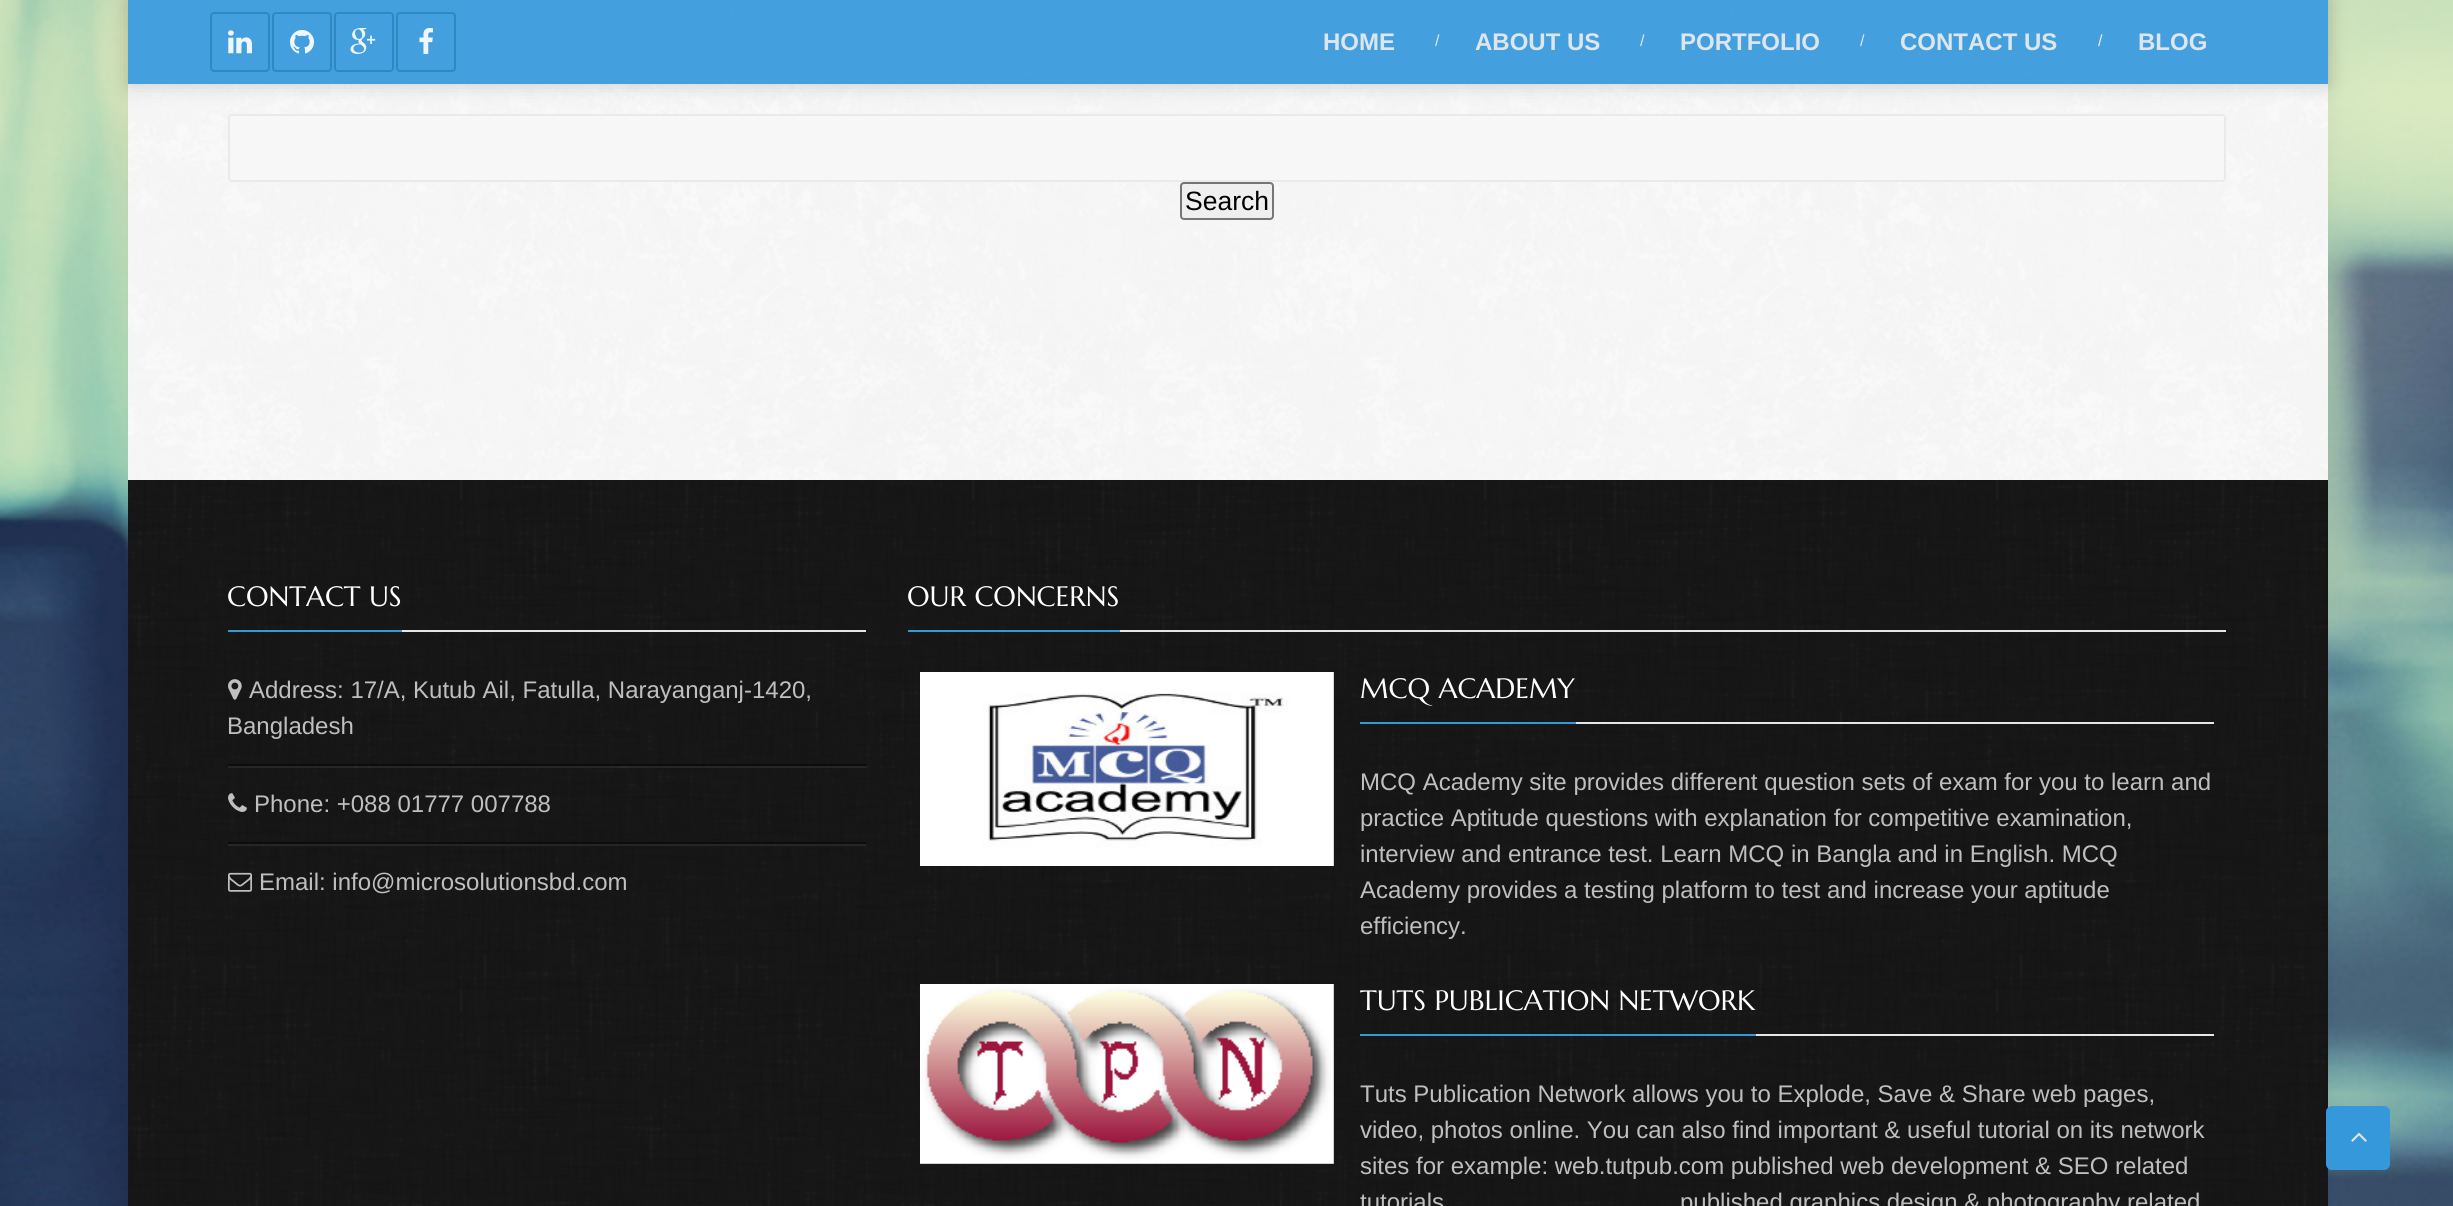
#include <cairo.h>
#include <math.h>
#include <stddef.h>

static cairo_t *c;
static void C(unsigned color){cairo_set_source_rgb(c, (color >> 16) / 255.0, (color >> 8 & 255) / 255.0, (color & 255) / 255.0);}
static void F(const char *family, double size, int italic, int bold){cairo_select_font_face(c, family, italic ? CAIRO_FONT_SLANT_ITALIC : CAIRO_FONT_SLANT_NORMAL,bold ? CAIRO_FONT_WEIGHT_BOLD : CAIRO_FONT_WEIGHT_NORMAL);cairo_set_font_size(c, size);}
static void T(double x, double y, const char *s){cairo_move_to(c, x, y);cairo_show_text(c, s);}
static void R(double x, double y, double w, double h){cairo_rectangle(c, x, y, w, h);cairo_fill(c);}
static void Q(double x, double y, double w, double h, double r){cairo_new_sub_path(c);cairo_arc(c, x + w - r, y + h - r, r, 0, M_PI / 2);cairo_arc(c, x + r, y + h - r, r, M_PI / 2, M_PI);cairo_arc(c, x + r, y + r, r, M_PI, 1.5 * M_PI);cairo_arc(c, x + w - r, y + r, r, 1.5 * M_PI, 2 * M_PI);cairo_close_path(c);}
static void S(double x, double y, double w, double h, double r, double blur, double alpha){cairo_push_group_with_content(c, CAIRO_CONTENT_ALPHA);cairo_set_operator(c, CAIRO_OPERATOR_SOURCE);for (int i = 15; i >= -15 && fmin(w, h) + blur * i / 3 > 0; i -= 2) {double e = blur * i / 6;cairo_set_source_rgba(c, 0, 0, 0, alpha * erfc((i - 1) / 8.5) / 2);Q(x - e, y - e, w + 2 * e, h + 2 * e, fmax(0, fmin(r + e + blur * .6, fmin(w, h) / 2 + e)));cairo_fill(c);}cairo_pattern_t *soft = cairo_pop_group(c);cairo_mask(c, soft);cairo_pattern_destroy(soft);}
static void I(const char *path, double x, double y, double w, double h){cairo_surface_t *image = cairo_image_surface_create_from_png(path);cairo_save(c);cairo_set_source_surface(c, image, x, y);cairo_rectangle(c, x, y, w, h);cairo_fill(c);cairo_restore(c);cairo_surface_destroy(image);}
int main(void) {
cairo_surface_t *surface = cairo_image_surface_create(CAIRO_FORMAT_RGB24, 2453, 1206);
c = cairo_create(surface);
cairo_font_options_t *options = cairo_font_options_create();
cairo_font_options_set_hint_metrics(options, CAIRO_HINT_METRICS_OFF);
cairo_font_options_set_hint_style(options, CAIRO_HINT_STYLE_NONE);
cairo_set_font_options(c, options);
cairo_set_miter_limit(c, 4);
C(0xffffff);
cairo_paint(c);
I("1.png",0,0,2453,1206);
C(0x000000);
S(128,-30,2200,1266,0,10,.05);
I("2.png",128,0,2200,480);
C(0xf7f7f7);
Q(229,115,1996,66,3);
cairo_fill_preserve(c);
C(0xeaeaea);
cairo_stroke(c);
cairo_save(c);
cairo_set_fill_rule(c,CAIRO_FILL_RULE_EVEN_ODD);
cairo_new_path(c);
cairo_move_to(c,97,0);
cairo_line_to(c,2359,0);
cairo_line_to(c,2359,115);
cairo_line_to(c,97,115);
cairo_close_path(c);
cairo_move_to(c,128,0);
cairo_line_to(c,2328,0);
cairo_line_to(c,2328,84);
cairo_line_to(c,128,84);
cairo_close_path(c);
cairo_clip(c);
C(0x000000);
S(128,0,2200,84,0,10,.18);
cairo_restore(c);
cairo_set_source_rgba(c,0.204,0.596,0.859,0.92);
R(128,0,2200,84);
Q(211,13,58,58,3);
C(0x3088c2);
cairo_stroke(c);
I("3.png",228,30,24,24);
Q(273,13,58,58,3);
cairo_stroke(c);
I("4.png",290,30,24,24);
Q(335,13,58,58,3);
cairo_stroke(c);
I("5.png",350,28,26,26);
Q(397,13,58,58,3);
cairo_stroke(c);
I("6.png",419,28,14,26);
F("Liberation Sans",24,0,1);
C(0xdfe6eb);
T(1323,50,"HOME");
F("Liberation Sans",16,0,0);
T(1435,46,"/");
F("Liberation Sans",24,0,1);
T(1475,50,"ABOUT US");
F("Liberation Sans",16,0,0);
T(1640,46,"/");
F("Liberation Sans",24,0,1);
T(1680,50,"PORTFOLIO");
F("Liberation Sans",16,0,0);
T(1860,46,"/");
F("Liberation Sans",24,0,1);
T(1900,50,"CONTACT US");
F("Liberation Sans",16,0,0);
C(0xededed);
T(2098,46,"/");
F("Liberation Sans",24,0,1);
C(0xdfe6eb);
T(2138,50,"BLOG");
C(0xefefef);
Q(1181,183,92,36,3);
cairo_fill_preserve(c);
C(0x767676);
cairo_stroke(c);
F("Liberation Sans",26.5,0,0);
C(0x000000);
T(1185,210,"Search");
I("7.png",128,480,2200,726);
C(0x3498db);
R(228,630,174,2);
F("Marcellus",28,0,0);
C(0xffffff);
T(227,606,"CONTACT US");
C(0xe6e6e6);
R(402,630,464,2);
I("8.png",228,679,14,21);
F("Liberation Sans",24,0,0);
C(0xbfbfbf);
T(249,698,"Address: 17/A, Kutub Ail, Fatulla, Narayanganj-1420,");
T(227,734,"Bangladesh");
cairo_set_source_rgba(c,1,1,1,0.07);
R(228,766,638,2);
C(0x0c0c0c);
R(228,764,638,2);
I("9.png",228,793,19,19);
C(0xbfbfbf);
T(254,812,"Phone: +088 01777 007788");
cairo_set_source_rgba(c,1,1,1,0.07);
R(228,844,638,2);
C(0x0c0c0c);
R(228,842,638,2);
I("10.png",228,872,24,20);
C(0xbfbfbf);
T(259,890,"Email: info@microsolutionsbd.com");
C(0x3498db);
R(908,630,212,2);
F("Marcellus",28,0,0);
C(0xffffff);
T(907,606,"OUR CONCERNS");
C(0xe6e6e6);
R(1120,630,1106,2);
I("11.png",920,672,414,194);
C(0x3498db);
R(1360,722,216,2);
C(0xffffff);
T(1360,698,"MCQ ACADEMY");
C(0xe6e6e6);
R(1576,722,638,2);
F("Liberation Sans",24,0,0);
C(0xbfbfbf);
T(1360,790,"MCQ Academy site provides different question sets of exam for you to learn and");
T(1360,826,"practice Aptitude questions with explanation for competitive examination,");
T(1360,862,"interview and entrance test. Learn MCQ in Bangla and in English. MCQ");
T(1360,898,"Academy provides a testing platform to test and increase your aptitude");
T(1360,934,"efficiency.");
I("12.png",920,984,414,180);
C(0x3498db);
R(1360,1034,396,2);
F("Marcellus",28,0,0);
C(0xffffff);
T(1360,1010,"TUTS PUBLICATION NETWORK");
C(0xe6e6e6);
R(1756,1034,458,2);
F("Liberation Sans",24,0,0);
C(0xbfbfbf);
T(1360,1102,"Tuts Publication Network allows you to Explode, Save & Share web pages,");
T(1360,1138,"video, photos online. You can also find important & useful tutorial on its network");
T(1360,1174,"sites for example: web.tutpub.com published web development & SEO related");
T(1360,1210,"tutorials");
T(1680,1210,"published graphics design & photography related");
C(0x3498db);
Q(2326,1106,64,64,6);
cairo_fill(c);
I("13.png",2351,1132,16,10);
cairo_surface_write_to_png(surface, "o.png");
cairo_font_options_destroy(options);
cairo_destroy(c);
cairo_surface_destroy(surface);
return 0;
}
